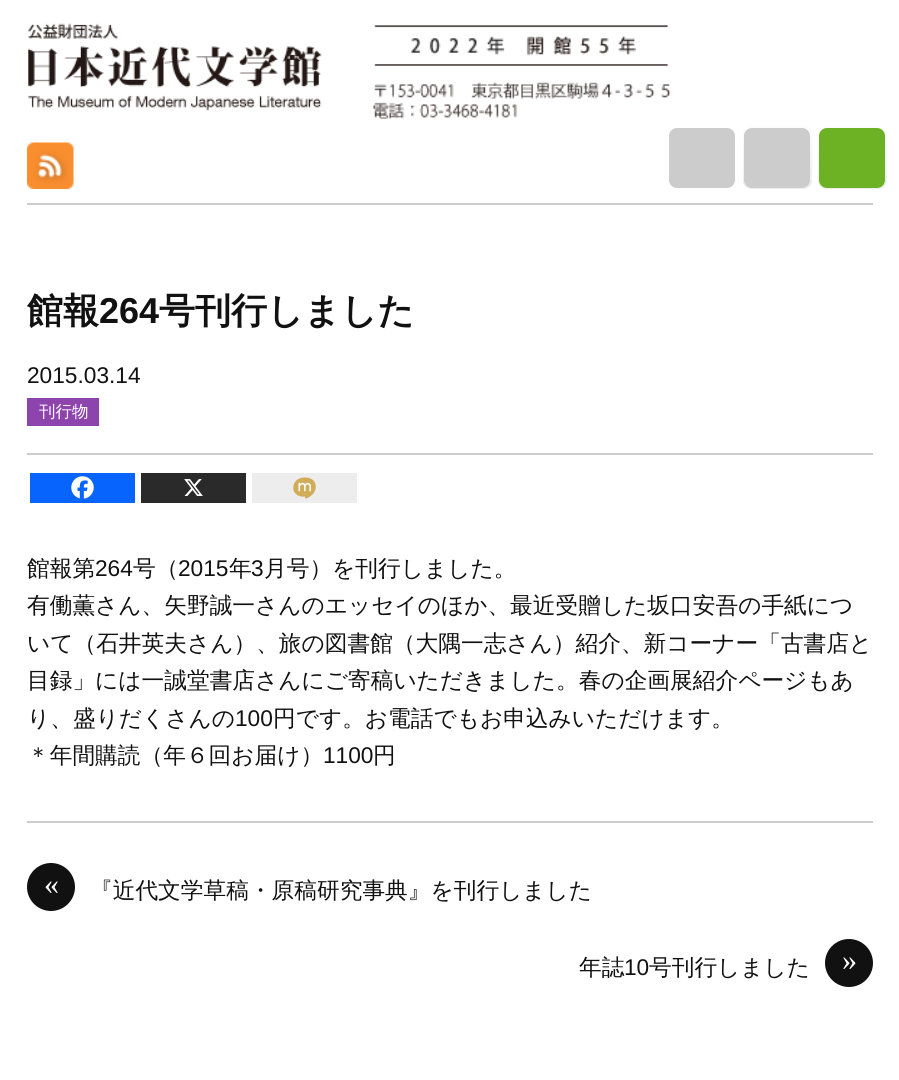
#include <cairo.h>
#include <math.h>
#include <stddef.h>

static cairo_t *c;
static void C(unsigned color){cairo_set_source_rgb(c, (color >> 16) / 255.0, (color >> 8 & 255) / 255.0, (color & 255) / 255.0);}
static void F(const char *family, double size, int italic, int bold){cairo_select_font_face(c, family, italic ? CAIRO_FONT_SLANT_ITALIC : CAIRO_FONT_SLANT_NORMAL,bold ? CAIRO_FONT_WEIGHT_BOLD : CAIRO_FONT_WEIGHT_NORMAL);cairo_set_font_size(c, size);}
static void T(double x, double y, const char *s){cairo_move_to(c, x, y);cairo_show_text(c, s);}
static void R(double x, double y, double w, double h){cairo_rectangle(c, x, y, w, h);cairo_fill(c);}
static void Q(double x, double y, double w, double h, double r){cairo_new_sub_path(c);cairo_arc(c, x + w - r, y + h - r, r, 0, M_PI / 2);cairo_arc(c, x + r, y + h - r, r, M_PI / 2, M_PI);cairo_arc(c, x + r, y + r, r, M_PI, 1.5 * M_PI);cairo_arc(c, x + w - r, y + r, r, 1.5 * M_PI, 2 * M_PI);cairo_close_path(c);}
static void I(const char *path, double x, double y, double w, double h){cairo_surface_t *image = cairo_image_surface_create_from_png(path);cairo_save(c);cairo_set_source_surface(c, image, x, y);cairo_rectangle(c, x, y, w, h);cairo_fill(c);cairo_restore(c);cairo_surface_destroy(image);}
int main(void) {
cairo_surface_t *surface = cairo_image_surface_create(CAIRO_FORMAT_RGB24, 899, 1080);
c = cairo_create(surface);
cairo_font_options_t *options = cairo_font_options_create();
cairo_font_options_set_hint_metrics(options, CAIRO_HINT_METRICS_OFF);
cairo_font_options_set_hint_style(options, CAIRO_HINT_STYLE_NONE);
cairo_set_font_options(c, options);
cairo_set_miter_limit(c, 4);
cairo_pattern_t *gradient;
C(0xffffff);
cairo_paint(c);
C(0xcccccc);
R(27,203,846,2);
I("1.png",28,23,294,88);
I("2.png",373,25,298,94);
I("3.png",27,142,47,47);
Q(669,128,66,60,8);
cairo_fill(c);
gradient = cairo_pattern_create_linear(777,126,777,189);
cairo_pattern_add_color_stop_rgba(gradient,0,0.992,0.992,0.992,1);
cairo_pattern_add_color_stop_rgba(gradient,1,0.929,0.929,0.929,1);
cairo_set_source(c,gradient);
cairo_pattern_destroy(gradient);
Q(743,126,69,63,8);
cairo_fill(c);
C(0xcccccc);
Q(744,128,66,60,8);
cairo_fill(c);
gradient = cairo_pattern_create_linear(852,126,852,189);
cairo_pattern_add_color_stop_rgba(gradient,0,0.992,0.992,0.992,1);
cairo_pattern_add_color_stop_rgba(gradient,1,0.929,0.929,0.929,1);
cairo_set_source(c,gradient);
cairo_pattern_destroy(gradient);
Q(818,126,69,63,8);
cairo_fill(c);
C(0x6db224);
Q(819,128,66,60,8);
cairo_fill(c);
C(0xcccccc);
R(27,821,846,2);
F("WenQuanYi Zen Hei",36,0,1);
C(0x111111);
T(27,323,"館報");
F("Liberation Sans",36,0,1);
T(99,323,"264");
F("WenQuanYi Zen Hei",36,0,1);
T(159,323,"号刊行しました");
F("Liberation Sans",22.7,0,0);
T(27,383,"2015.03.14");
C(0xcccccc);
R(27,453,846,2);
C(0x8e44ad);
R(27,398,72,28);
F("WenQuanYi Zen Hei Medium",16.5,0,0);
C(0xffffff);
T(39,417,"刊行物");
C(0x0765fe);
R(30,473,105,30);
I("4.png",71,476,23,23);
C(0x2a2a2a);
R(141,473,105,30);
I("5.png",184,479,19,17);
C(0xededed);
R(252,473,105,30);
I("6.png",293,477,23,22);
F("WenQuanYi Zen Hei Medium",22.7,0,0);
C(0x111111);
T(27,576,"館報第");
F("Liberation Sans",22.7,0,0);
T(95,576,"264");
F("WenQuanYi Zen Hei Medium",22.7,0,0);
T(133,576,"号（");
F("Liberation Sans",22.7,0,0);
T(178,576,"2015");
F("WenQuanYi Zen Hei Medium",22.7,0,0);
T(229,576,"年");
F("Liberation Sans",22.7,0,0);
T(251,576,"3");
F("WenQuanYi Zen Hei Medium",22.7,0,0);
T(264,576,"月号）を刊行しました。");
T(27,613,"有働薫さん、矢野誠一さんのエッセイのほか、最近受贈した坂口安吾の手紙につ");
T(27,651,"いて（石井英夫さん）、旅の図書館（大隅一志さん）紹介、新コーナー「古書店と");
T(27,688,"目録」には一誠堂書店さんにご寄稿いただきました。春の企画展紹介ページもあ");
T(27,726,"り、盛りだくさんの");
F("Liberation Sans",22.7,0,0);
T(235,726,"100");
F("WenQuanYi Zen Hei Medium",22.7,0,0);
T(273,726,"円です。お電話でもお申込みいただけます。");
T(27,763,"＊年間購読（年６回お届け）");
F("Liberation Sans",22.7,0,0);
T(323,763,"1100");
F("WenQuanYi Zen Hei Medium",22.7,0,0);
T(373,763,"円");
cairo_new_path(c);
cairo_arc(c,51,887,24,0,2 * M_PI);
cairo_fill(c);
F("Liberation Serif",30,0,0);
C(0xffffff);
T(44,894,"«");
F("WenQuanYi Zen Hei Medium",22.7,0,0);
C(0x111111);
T(90,898,"『近代文学草稿・原稿研究事典』を刊行しました");
T(579,975,"年誌");
F("Liberation Sans",22.7,0,0);
T(624,975,"10");
F("WenQuanYi Zen Hei Medium",22.7,0,0);
T(649,975,"号刊行しました");
cairo_new_path(c);
cairo_arc(c,849,963,24,0,2 * M_PI);
cairo_fill(c);
F("Liberation Serif",30,0,0);
C(0xffffff);
T(842,970,"»");
cairo_surface_write_to_png(surface, "o.png");
cairo_font_options_destroy(options);
cairo_destroy(c);
cairo_surface_destroy(surface);
return 0;
}
